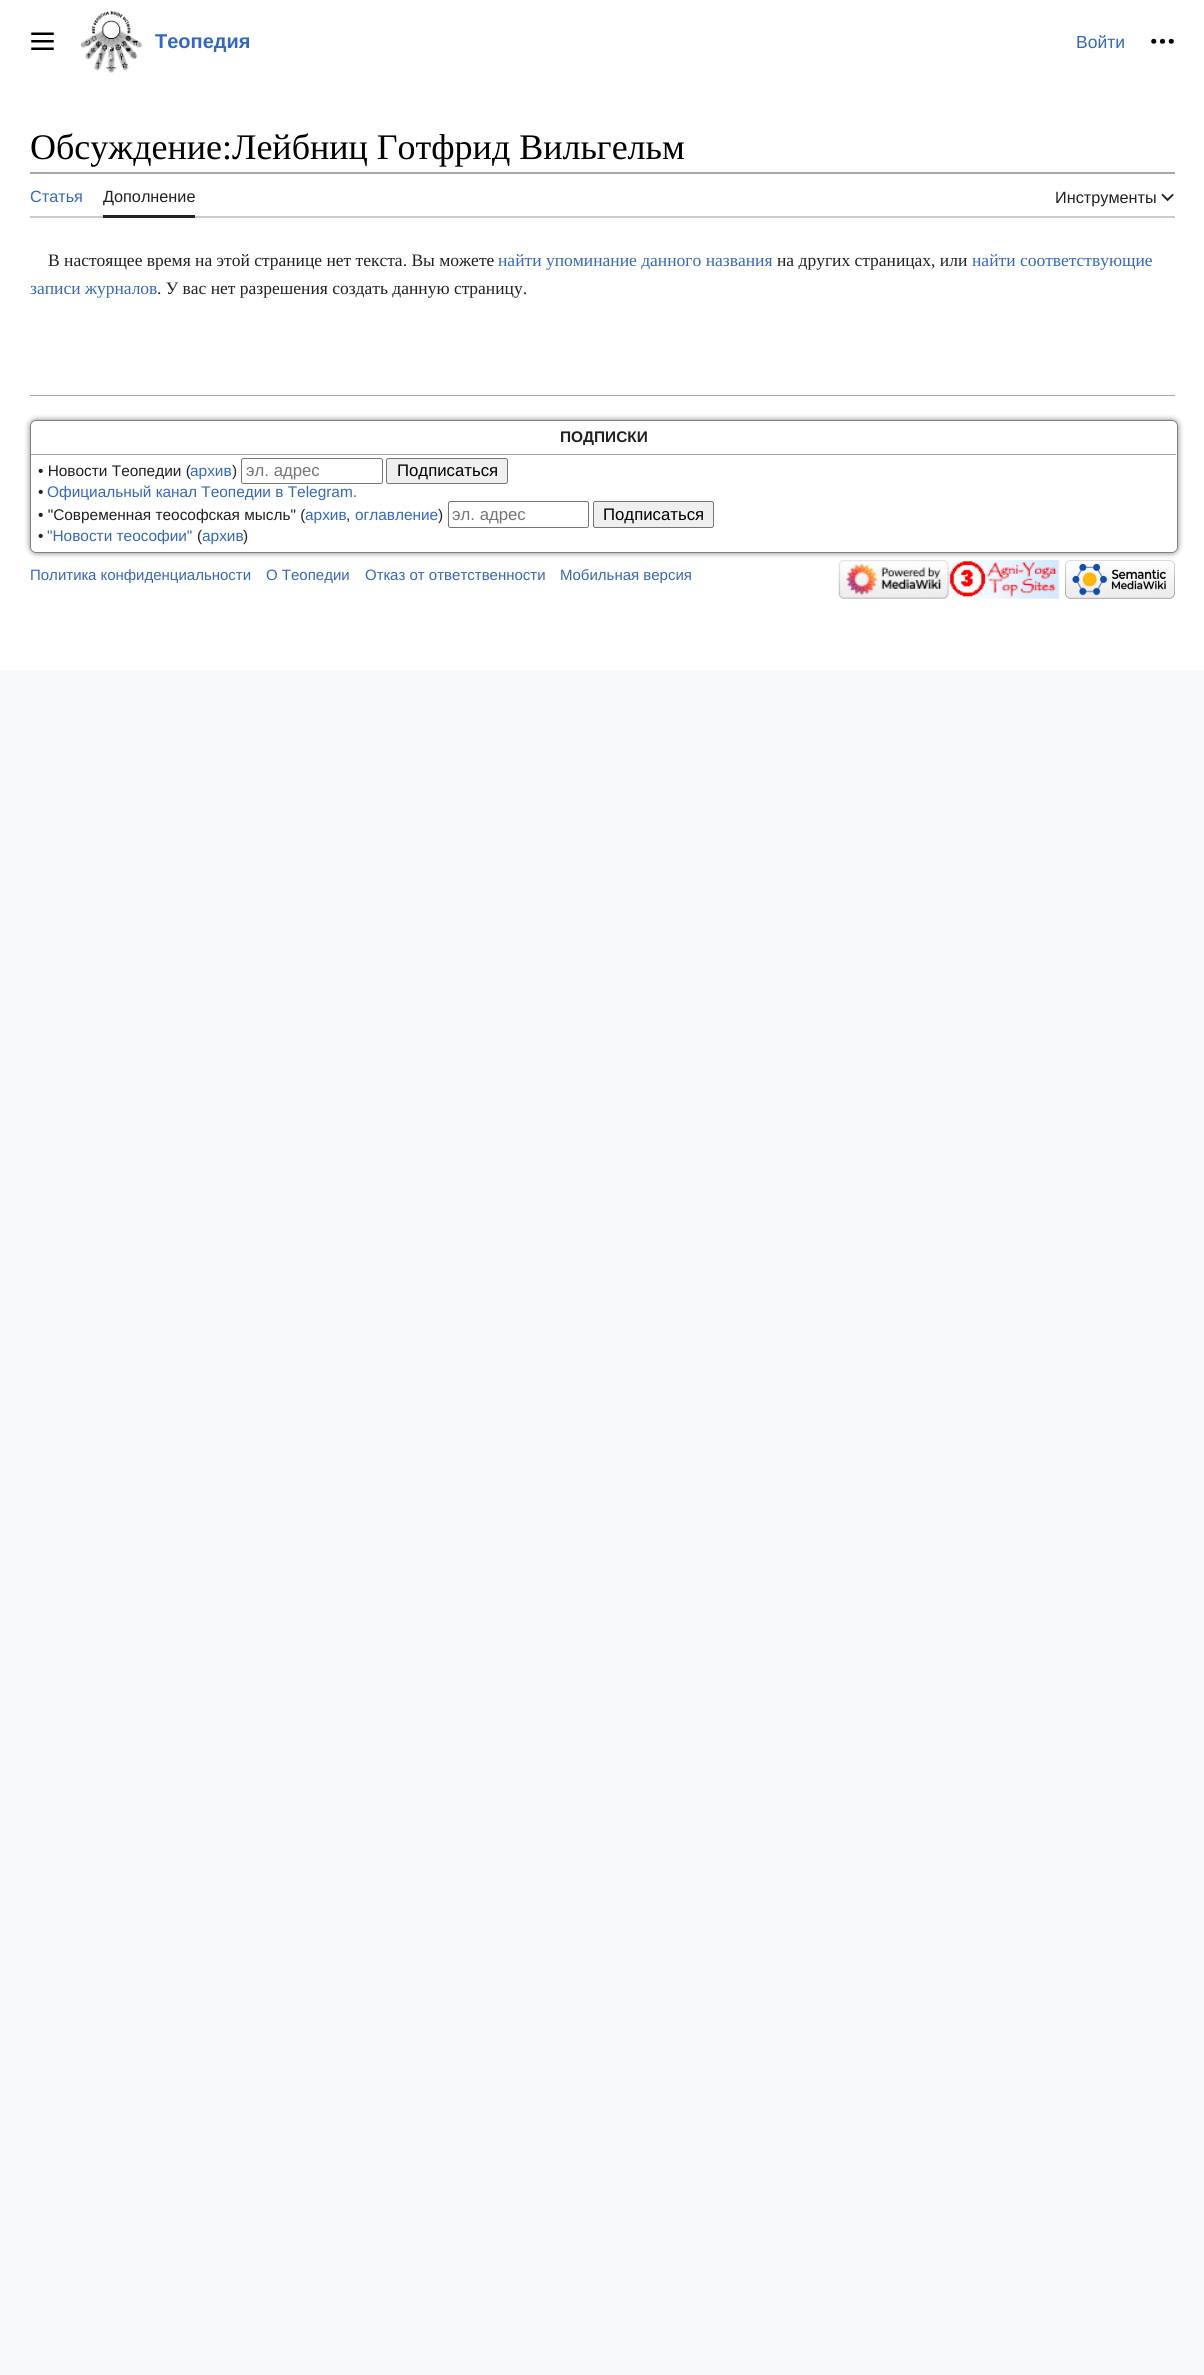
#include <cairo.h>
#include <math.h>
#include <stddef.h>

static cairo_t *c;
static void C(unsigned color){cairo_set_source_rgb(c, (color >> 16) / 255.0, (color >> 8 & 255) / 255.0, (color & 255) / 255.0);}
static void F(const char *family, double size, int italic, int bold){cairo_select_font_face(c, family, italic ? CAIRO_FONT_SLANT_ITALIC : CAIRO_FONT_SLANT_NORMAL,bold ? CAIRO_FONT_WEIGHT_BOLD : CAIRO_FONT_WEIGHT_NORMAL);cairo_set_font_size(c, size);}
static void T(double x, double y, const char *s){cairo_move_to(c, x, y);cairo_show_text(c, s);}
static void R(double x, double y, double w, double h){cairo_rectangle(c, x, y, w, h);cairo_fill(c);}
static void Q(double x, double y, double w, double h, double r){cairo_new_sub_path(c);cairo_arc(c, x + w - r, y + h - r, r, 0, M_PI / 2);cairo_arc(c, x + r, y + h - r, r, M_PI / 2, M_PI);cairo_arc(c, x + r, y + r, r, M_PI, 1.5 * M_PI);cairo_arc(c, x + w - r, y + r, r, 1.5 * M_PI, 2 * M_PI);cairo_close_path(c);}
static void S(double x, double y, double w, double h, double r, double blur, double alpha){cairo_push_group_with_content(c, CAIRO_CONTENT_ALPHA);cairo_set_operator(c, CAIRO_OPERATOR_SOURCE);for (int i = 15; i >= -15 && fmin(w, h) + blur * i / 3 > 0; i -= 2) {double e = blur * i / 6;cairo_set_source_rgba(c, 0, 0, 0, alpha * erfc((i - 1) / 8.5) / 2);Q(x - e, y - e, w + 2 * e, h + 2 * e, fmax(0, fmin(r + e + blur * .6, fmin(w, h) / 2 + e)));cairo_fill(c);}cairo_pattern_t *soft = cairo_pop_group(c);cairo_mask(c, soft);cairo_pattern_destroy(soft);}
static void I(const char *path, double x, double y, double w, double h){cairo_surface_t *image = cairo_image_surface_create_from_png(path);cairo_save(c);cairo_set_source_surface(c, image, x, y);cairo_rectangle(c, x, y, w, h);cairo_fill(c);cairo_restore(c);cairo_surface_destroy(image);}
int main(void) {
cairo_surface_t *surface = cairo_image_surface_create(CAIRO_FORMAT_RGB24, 1204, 2375);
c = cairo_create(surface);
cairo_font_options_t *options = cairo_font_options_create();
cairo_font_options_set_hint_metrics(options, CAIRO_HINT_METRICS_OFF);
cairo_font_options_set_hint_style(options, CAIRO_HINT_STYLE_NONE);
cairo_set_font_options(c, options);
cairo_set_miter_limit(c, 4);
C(0xf8f9fa);
cairo_paint(c);
C(0xffffff);
R(0,0,1204,670);
I("1.png",31,32,23,18);
I("2.png",80,11,63,62);
F("Liberation Sans",20,0,1);
C(0x3366cc);
T(155,48,"Теопедия");
F("Liberation Sans",17.5,0,0);
T(1076,48,"Войти");
I("3.png",1151,38,23,6);
C(0xa2a9b1);
R(30,172,1145,2);
F("Liberation Serif",36,0,0);
C(0x000000);
T(30,159,"Обсуждение:Лейбниц Готфрид Вильгельм");
C(0xc8ccd1);
R(30,216,1145,2);
F("Liberation Sans",16.25,0,0);
C(0x3366cc);
T(30,202,"Статья");
C(0x202122);
R(103,215,92,3);
T(103,202,"Дополнение");
T(1055,203,"Инструменты");
I("4.png",1161,193,13,9);
F("Liberation Serif",17.5,0,0);
T(48,266,"В настоящее время на этой странице нет текста. Вы можете");
C(0x3366cc);
T(498,266,"найти упоминание данного названия");
C(0x202122);
T(777,266,"на других страницах, или");
C(0x3366cc);
T(972,266,"найти соответствующие");
T(30,294,"записи журналов");
C(0x202122);
T(157,294,". У вас нет разрешения создать данную страницу.");
C(0xa2a9b1);
R(30,395,1145,1);
cairo_save(c);
cairo_set_fill_rule(c,CAIRO_FILL_RULE_EVEN_ODD);
cairo_new_path(c);
cairo_move_to(c,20,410);
cairo_line_to(c,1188,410);
cairo_line_to(c,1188,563);
cairo_line_to(c,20,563);
cairo_close_path(c);
cairo_move_to(c,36,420);
cairo_line_to(c,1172,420);
cairo_curve_to(c,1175.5,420,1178,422.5,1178,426);
cairo_line_to(c,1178,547);
cairo_curve_to(c,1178,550.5,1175.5,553,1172,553);
cairo_line_to(c,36,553);
cairo_curve_to(c,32.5,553,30,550.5,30,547);
cairo_line_to(c,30,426);
cairo_curve_to(c,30,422.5,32.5,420,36,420);
cairo_close_path(c);
cairo_clip(c);
C(0x000000);
S(30,420,1148,133,6,3,.5);
cairo_restore(c);
Q(30.5,420.5,1147,132,5.5);
C(0x808080);
cairo_set_line_width(c,1);
cairo_stroke(c);
F("Liberation Sans",15.4,0,1);
C(0x202122);
T(560,442,"ПОДПИСКИ");
C(0xa2a9b1);
R(31,454,1145,1);
F("Liberation Sans",15.4,0,0);
C(0x202122);
T(38,476,"• Новости Теопедии (");
C(0x3366cc);
T(190,476,"архив");
C(0x202122);
T(232,476,")");
Q(241.5,458.5,141,25,2);
C(0x767676);
cairo_stroke(c);
F("Liberation Sans",16.75,0,0);
C(0x757575);
T(246,476,"эл. адрес");
C(0xefefef);
Q(386.5,458.5,121,25,2);
cairo_fill_preserve(c);
C(0x767676);
cairo_stroke(c);
C(0x000000);
T(397,476,"Подписаться");
F("Liberation Sans",15.4,0,0);
C(0x202122);
T(38,497,"•");
C(0x3366cc);
T(47,497,"Официальный канал Теопедии в Telegram.");
C(0x202122);
T(38,520,"• \"Современная теософская мысль\" (");
C(0x3366cc);
T(305,520,"архив");
C(0x202122);
T(346,520,",");
C(0x3366cc);
T(355,520,"оглавление");
C(0x202122);
T(438,520,")");
Q(448.5,501.5,140,26,2);
C(0x767676);
cairo_stroke(c);
F("Liberation Sans",16.75,0,0);
C(0x757575);
T(452,520,"эл. адрес");
C(0xefefef);
Q(593.5,501.5,120,26,2);
cairo_fill_preserve(c);
C(0x767676);
cairo_stroke(c);
C(0x000000);
T(603,520,"Подписаться");
F("Liberation Sans",15.4,0,0);
C(0x202122);
T(38,541,"•");
C(0x3366cc);
T(47,541,"\"Новости теософии\"");
C(0x202122);
T(197,541,"(");
C(0x3366cc);
T(202,541,"архив");
C(0x202122);
T(243,541,")");
F("Liberation Sans",15,0,0);
C(0x3366cc);
T(30,580,"Политика конфиденциальности");
T(266,580,"О Теопедии");
T(365,580,"Отказ от ответственности");
T(560,580,"Мобильная версия");
I("5.png",838,560,111,39);
I("6.png",948,560,111,39);
I("7.png",1065,560,110,39);
cairo_surface_write_to_png(surface, "o.png");
cairo_font_options_destroy(options);
cairo_destroy(c);
cairo_surface_destroy(surface);
return 0;
}
